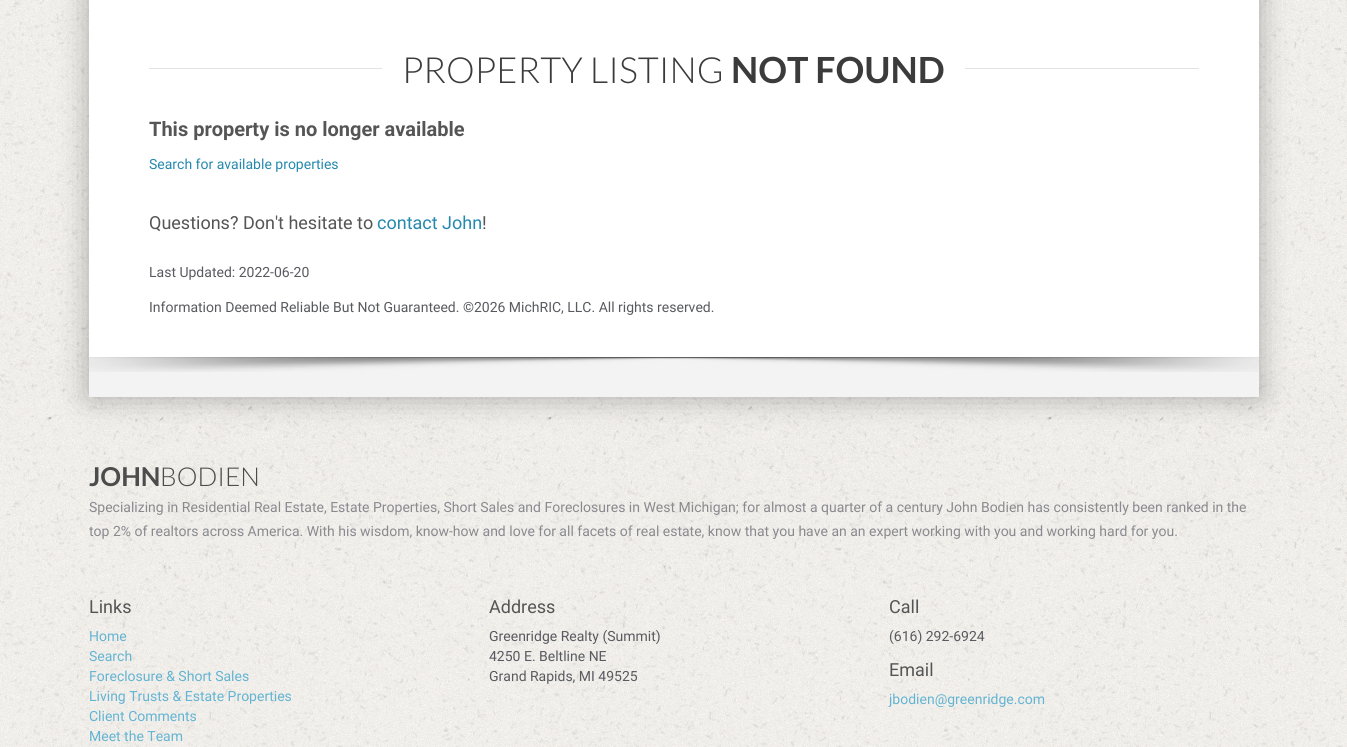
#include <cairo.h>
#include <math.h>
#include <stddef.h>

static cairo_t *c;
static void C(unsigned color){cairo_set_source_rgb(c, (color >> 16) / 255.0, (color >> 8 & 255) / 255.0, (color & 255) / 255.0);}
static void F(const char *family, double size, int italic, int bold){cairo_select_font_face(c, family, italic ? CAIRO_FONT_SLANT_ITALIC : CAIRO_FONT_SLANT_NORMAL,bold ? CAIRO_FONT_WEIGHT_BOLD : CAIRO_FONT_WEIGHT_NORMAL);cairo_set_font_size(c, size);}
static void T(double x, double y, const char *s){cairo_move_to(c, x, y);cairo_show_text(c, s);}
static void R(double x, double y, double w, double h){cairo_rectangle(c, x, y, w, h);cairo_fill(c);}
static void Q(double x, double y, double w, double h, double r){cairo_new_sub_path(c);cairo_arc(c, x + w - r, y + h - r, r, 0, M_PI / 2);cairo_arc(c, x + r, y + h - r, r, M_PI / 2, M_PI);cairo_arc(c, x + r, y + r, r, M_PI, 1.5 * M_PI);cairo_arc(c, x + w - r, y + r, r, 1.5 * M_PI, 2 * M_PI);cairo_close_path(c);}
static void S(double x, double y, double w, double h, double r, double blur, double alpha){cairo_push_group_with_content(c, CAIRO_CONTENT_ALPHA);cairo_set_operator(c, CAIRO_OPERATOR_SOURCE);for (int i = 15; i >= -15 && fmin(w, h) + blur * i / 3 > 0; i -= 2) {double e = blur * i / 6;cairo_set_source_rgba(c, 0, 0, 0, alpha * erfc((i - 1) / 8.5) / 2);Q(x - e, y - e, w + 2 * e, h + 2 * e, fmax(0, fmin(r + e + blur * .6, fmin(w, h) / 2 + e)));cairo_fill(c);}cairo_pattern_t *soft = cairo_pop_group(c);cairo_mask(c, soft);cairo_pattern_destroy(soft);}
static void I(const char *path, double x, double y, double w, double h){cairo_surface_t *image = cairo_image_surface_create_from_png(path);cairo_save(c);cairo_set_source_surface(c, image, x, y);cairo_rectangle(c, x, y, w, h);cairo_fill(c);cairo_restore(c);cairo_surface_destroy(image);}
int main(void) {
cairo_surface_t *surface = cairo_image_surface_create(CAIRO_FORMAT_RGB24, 1347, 747);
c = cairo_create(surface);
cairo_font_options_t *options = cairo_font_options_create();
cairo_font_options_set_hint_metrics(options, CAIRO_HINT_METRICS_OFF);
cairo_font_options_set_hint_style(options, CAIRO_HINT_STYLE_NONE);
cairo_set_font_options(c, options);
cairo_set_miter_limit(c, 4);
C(0xffffff);
cairo_paint(c);
I("1.png",0,0,1347,747);
C(0x000000);
S(89,-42,1170,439,0,15,.3);
C(0xffffff);
R(89,0,1170,357);
C(0xe3e3e3);
R(149,68,1050,1);
C(0xffffff);
R(382,68,583,1);
F("Lato Light",36,0,0);
C(0x3b3b3b);
T(402,83,"PROPERTY LISTING");
F("Lato",36,0,1);
T(731,83,"NOT FOUND");
F("Roboto",20,0,1);
C(0x555555);
T(149,136,"This property is no longer available");
F("Roboto",14,0,0);
C(0x2589ae);
T(149,169,"Search for available properties");
F("Roboto",18,0,0);
C(0x555555);
T(149,229,"Questions? Don't hesitate to");
C(0x2589ae);
T(377,229,"contact John");
C(0x555555);
T(482,229,"!");
F("Roboto",14,0,0);
C(0x595a60);
T(149,277,"Last Updated: 2022-06-20");
T(149,312,"Information Deemed Reliable But Not Guaranteed. ©2026 MichRIC, LLC. All rights reserved.");
C(0xf3f3f3);
R(89,357,1170,40);
I("2.png",89,357,1170,15);
F("Lato",26,0,1);
C(0x4c4c4c);
T(89,486,"JOHN");
F("Lato Light",26,0,0);
T(160,486,"BODIEN");
F("Roboto",14,0,0);
C(0x898a90);
T(89,512,"Specializing in Residential Real Estate, Estate Properties, Short Sales and Foreclosures in West Michigan; for almost a quarter of a century John Bodien has consistently been ranked in the");
T(89,536,"top 2% of realtors across America. With his wisdom, know-how and love for all facets of real estate, know that you have an an expert working with you and working hard for you.");
F("Roboto",18,0,0);
C(0x555555);
T(89,613,"Links");
F("Roboto",14,0,0);
C(0x63b4d2);
T(89,641,"Home");
T(89,661,"Search");
T(89,681,"Foreclosure & Short Sales");
T(89,701,"Living Trusts & Estate Properties");
T(89,721,"Client Comments");
T(89,741,"Meet the Team");
F("Roboto",18,0,0);
C(0x555555);
T(489,613,"Address");
F("Roboto",14,0,0);
C(0x595a60);
T(489,641,"Greenridge Realty (Summit)");
T(489,661,"4250 E. Beltline NE");
T(489,681,"Grand Rapids, MI 49525");
F("Roboto",18,0,0);
C(0x555555);
T(889,613,"Call");
F("Roboto",14,0,0);
C(0x595a60);
T(889,641,"(616) 292-6924");
F("Roboto",18,0,0);
C(0x555555);
T(889,676,"Email");
F("Roboto",14,0,0);
C(0x63b4d2);
T(889,704,"jbodien@greenridge.com");
cairo_surface_write_to_png(surface, "o.png");
cairo_font_options_destroy(options);
cairo_destroy(c);
cairo_surface_destroy(surface);
return 0;
}
